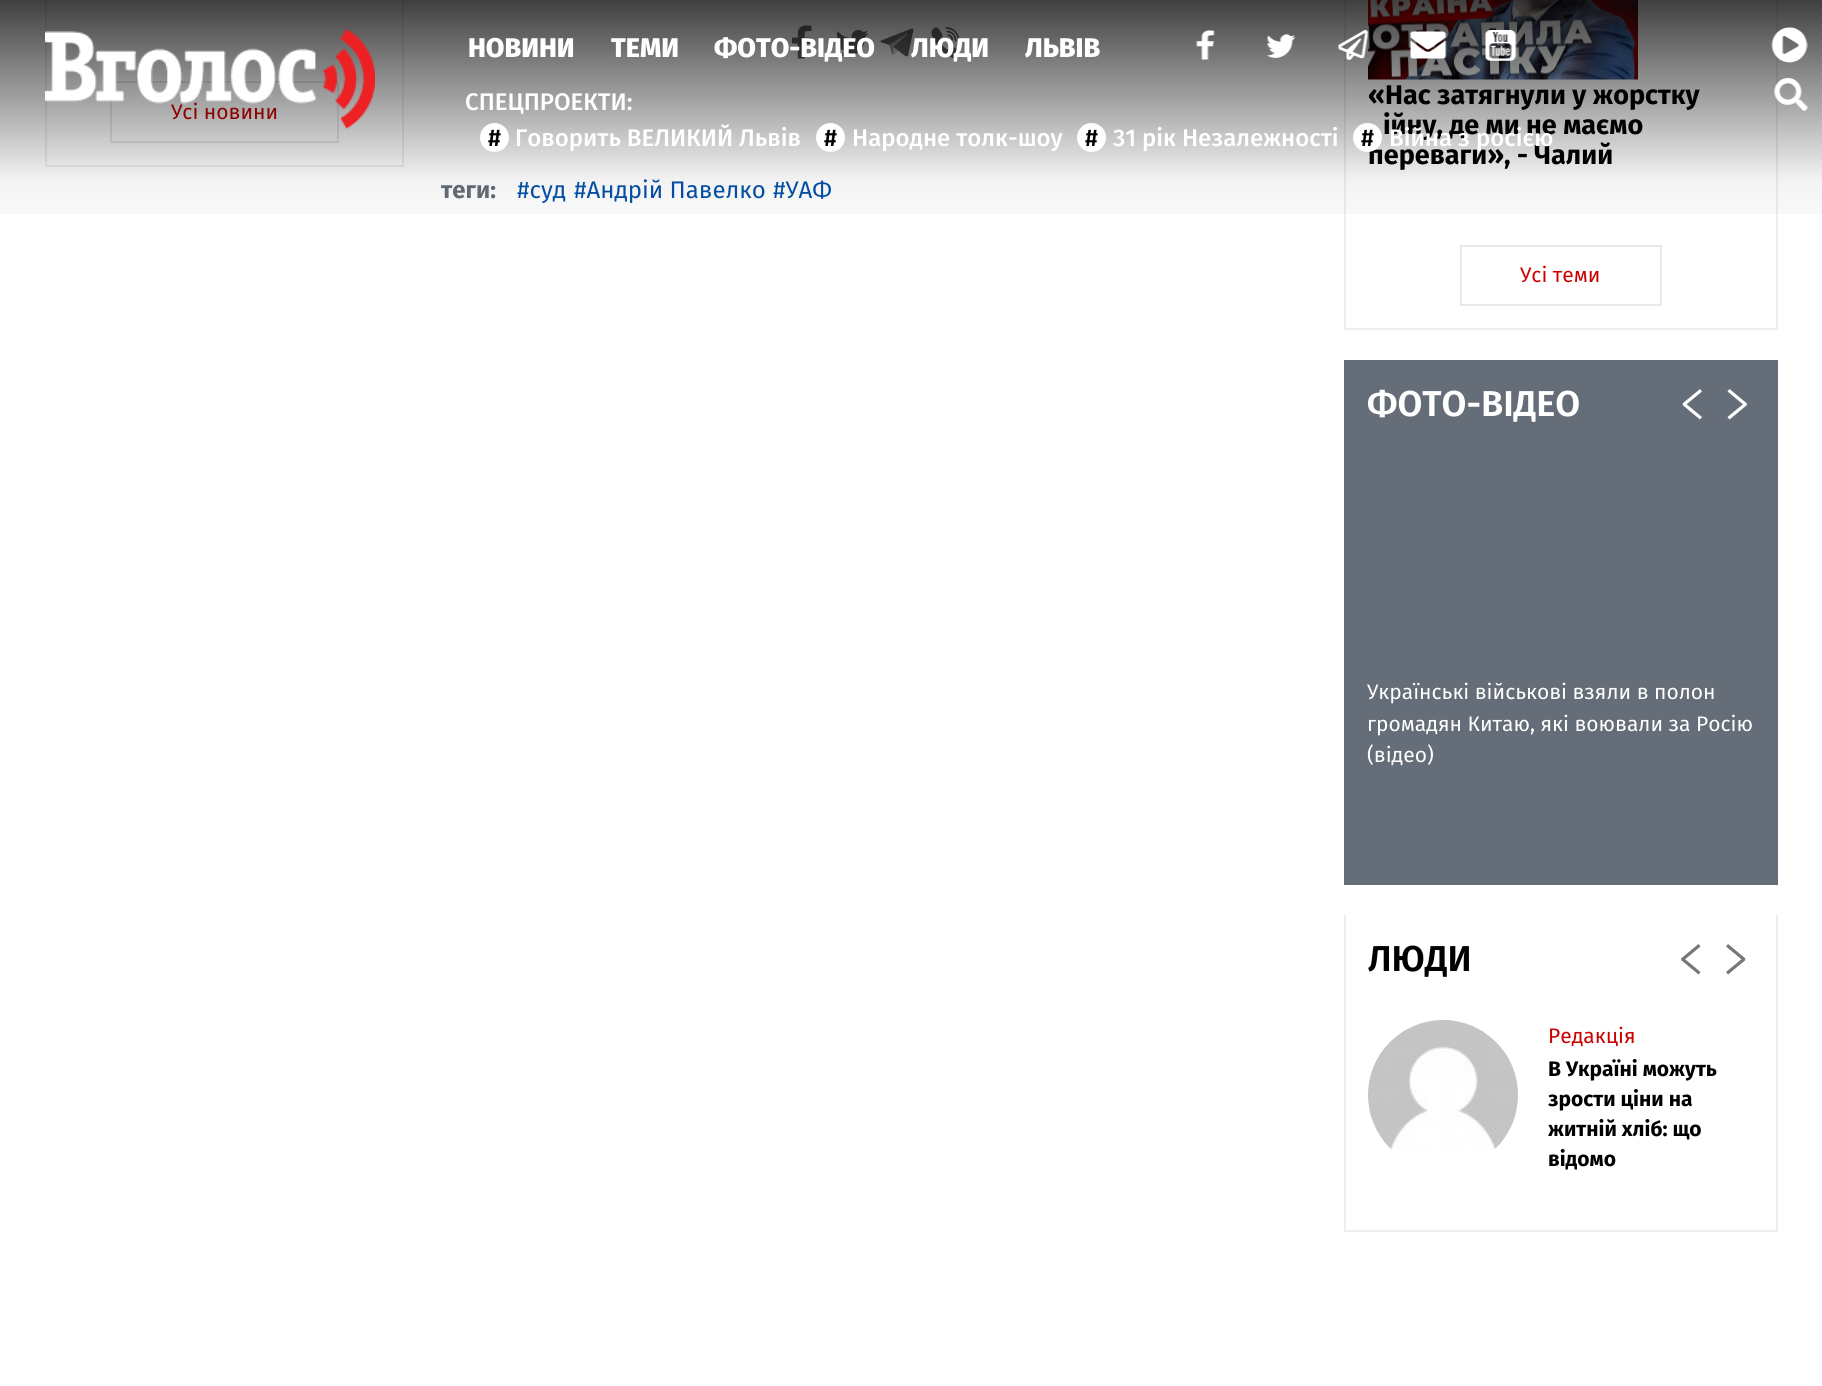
#include <cairo.h>
#include <math.h>
#include <stddef.h>

static cairo_t *c;
static void C(unsigned color){cairo_set_source_rgb(c, (color >> 16) / 255.0, (color >> 8 & 255) / 255.0, (color & 255) / 255.0);}
static void F(const char *family, double size, int italic, int bold){cairo_select_font_face(c, family, italic ? CAIRO_FONT_SLANT_ITALIC : CAIRO_FONT_SLANT_NORMAL,bold ? CAIRO_FONT_WEIGHT_BOLD : CAIRO_FONT_WEIGHT_NORMAL);cairo_set_font_size(c, size);}
static void T(double x, double y, const char *s){cairo_move_to(c, x, y);cairo_show_text(c, s);}
static void R(double x, double y, double w, double h){cairo_rectangle(c, x, y, w, h);cairo_fill(c);}
static void I(const char *path, double x, double y, double w, double h){cairo_surface_t *image = cairo_image_surface_create_from_png(path);cairo_save(c);cairo_set_source_surface(c, image, x, y);cairo_rectangle(c, x, y, w, h);cairo_fill(c);cairo_restore(c);cairo_surface_destroy(image);}
int main(void) {
cairo_surface_t *surface = cairo_image_surface_create(CAIRO_FORMAT_RGB24, 1822, 1386);
c = cairo_create(surface);
cairo_font_options_t *options = cairo_font_options_create();
cairo_font_options_set_hint_metrics(options, CAIRO_HINT_METRICS_OFF);
cairo_font_options_set_hint_style(options, CAIRO_HINT_STYLE_NONE);
cairo_set_font_options(c, options);
cairo_set_miter_limit(c, 4);
cairo_pattern_t *gradient;
C(0xffffff);
cairo_paint(c);
cairo_rectangle(c,46,-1,357,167);
C(0xeeeeee);
cairo_stroke(c);
cairo_rectangle(c,111,82,227,60);
C(0xe6e9ee);
cairo_stroke(c);
F("Fira Sans",21,0,0);
C(0xcc0000);
T(171,119,"Усі новини");
cairo_rectangle(c,1345,-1,432,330);
C(0xeeeeee);
cairo_stroke(c);
I("9.png",1368,0,270,80);
F("Fira Sans",27,0,1);
C(0x000000);
T(1368,104,"«Нас затягнули у жорстку");
T(1383,134,"ійну, де ми не маємо");
T(1368,164,"переваги», - Чалий");
I("11.png",792,25,20,34);
I("12.png",835,30,34,27);
I("13.png",880,28,34,29);
I("14.png",931,27,29,32);
F("Fira Sans",24,0,1);
C(0x656d78);
T(441,198,"теги:");
F("Fira Sans",24,0,0);
C(0x0451a8);
T(517,198,"#суд");
T(574,198,"#Андрій Павелко");
T(773,198,"#УАФ");
gradient = cairo_pattern_create_linear(911,240,911,0);
cairo_pattern_add_color_stop_rgba(gradient,0,0,0,0,0);
cairo_pattern_add_color_stop_rgba(gradient,.25,0,0,0,.05);
cairo_pattern_add_color_stop_rgba(gradient,1,0,0,0,.75);
cairo_set_source(c,gradient);
cairo_pattern_destroy(gradient);
R(0,0,1822,214);
I("1.png",45,28,330,102);
F("Fira Sans ExtraBold",27,0,0);
C(0xffffff);
T(468,57,"НОВИНИ");
T(611,57,"ТЕМИ");
T(714,57,"ФОТО-ВІДЕО");
T(911,57,"ЛЮДИ");
T(1025,57,"ЛЬВІВ");
I("2.png",1196,30,19,30);
I("3.png",1266,34,30,24);
I("4.png",1338,30,31,30);
I("5.png",1410,31,37,28);
I("6.png",1485,30,32,31);
F("Fira Sans Medium",24,0,0);
T(465,110,"СПЕЦПРОЕКТИ:");
cairo_new_path(c);
cairo_arc(c,494.5,137.5,14.5,0,2 * M_PI);
cairo_fill(c);
C(0x000000);
T(488,146,"#");
C(0xffffff);
T(515,146,"Говорить ВЕЛИКИЙ Львів");
cairo_new_path(c);
cairo_arc(c,830.5,137.5,14.5,0,2 * M_PI);
cairo_fill(c);
C(0x000000);
T(824,146,"#");
C(0xffffff);
T(852,146,"Народне толк-шоу");
cairo_new_path(c);
cairo_arc(c,1091.5,137.5,14.5,0,2 * M_PI);
cairo_fill(c);
C(0x000000);
T(1085,146,"#");
C(0xffffff);
T(1113,146,"31 рік Незалежності");
cairo_new_path(c);
cairo_arc(c,1367.5,137.5,14.5,0,2 * M_PI);
cairo_fill(c);
C(0x000000);
T(1361,146,"#");
C(0xffffff);
T(1389,146,"Війна з росією");
I("7.png",1771,27,37,36);
I("8.png",1774,78,34,33);
cairo_rectangle(c,1461,246,200,59);
C(0xe6e9ee);
cairo_stroke(c);
F("Fira Sans",21,0,0);
C(0xcc0000);
T(1520,282,"Усі теми");
C(0x656d78);
R(1344,360,434,525);
F("Fira Sans SemiBold",36,0,0);
C(0xffffff);
T(1367,416,"ФОТО-ВІДЕО");
cairo_new_path(c);
cairo_move_to(c,1682.5,403.5);
cairo_line_to(c,1700,389);
cairo_line_to(c,1702,391.5);
cairo_line_to(c,1684.5,406);
cairo_close_path(c);
cairo_fill(c);
cairo_new_path(c);
cairo_move_to(c,1684.5,402.5);
cairo_line_to(c,1702,417);
cairo_line_to(c,1700,419.5);
cairo_line_to(c,1682.5,405);
cairo_close_path(c);
cairo_fill(c);
cairo_new_path(c);
cairo_move_to(c,1727.5,417);
cairo_line_to(c,1745,402.5);
cairo_line_to(c,1747,405);
cairo_line_to(c,1729.5,419.5);
cairo_close_path(c);
cairo_fill(c);
cairo_new_path(c);
cairo_move_to(c,1729.5,389);
cairo_line_to(c,1747,403.5);
cairo_line_to(c,1745,406);
cairo_line_to(c,1727.5,391.5);
cairo_close_path(c);
cairo_fill(c);
F("Fira Sans",21,0,0);
T(1367,699,"Українські військові взяли в полон");
T(1367,731,"громадян Китаю, які воювали за Росію");
T(1367,762,"(відео)");
C(0xeeeeee);
R(1776,915,2,317);
R(1344,1230,434,2);
R(1344,915,2,317);
F("Fira Sans SemiBold",36,0,0);
C(0x000000);
T(1368,971,"ЛЮДИ");
C(0x777777);
cairo_new_path(c);
cairo_move_to(c,1681,958.5);
cairo_line_to(c,1698.5,944);
cairo_line_to(c,1700.5,946.5);
cairo_line_to(c,1683,961);
cairo_close_path(c);
cairo_fill(c);
cairo_new_path(c);
cairo_move_to(c,1683,957.5);
cairo_line_to(c,1700.5,972);
cairo_line_to(c,1698.5,974.5);
cairo_line_to(c,1681,960);
cairo_close_path(c);
cairo_fill(c);
cairo_new_path(c);
cairo_move_to(c,1726,972);
cairo_line_to(c,1743.5,957.5);
cairo_line_to(c,1745.5,960);
cairo_line_to(c,1728,974.5);
cairo_close_path(c);
cairo_fill(c);
cairo_new_path(c);
cairo_move_to(c,1728,944);
cairo_line_to(c,1745.5,958.5);
cairo_line_to(c,1743.5,961);
cairo_line_to(c,1726,946.5);
cairo_close_path(c);
cairo_fill(c);
I("10.png",1368,1020,150,130);
F("Fira Sans",21,0,0);
C(0xcc0000);
T(1548,1043,"Редакція");
F("Fira Sans",21,0,1);
C(0x000000);
T(1548,1076,"В Україні можуть");
T(1548,1106,"зрости ціни на");
T(1548,1136,"житній хліб: що");
T(1548,1166,"відомо");
cairo_surface_write_to_png(surface, "o.png");
cairo_font_options_destroy(options);
cairo_destroy(c);
cairo_surface_destroy(surface);
return 0;
}
